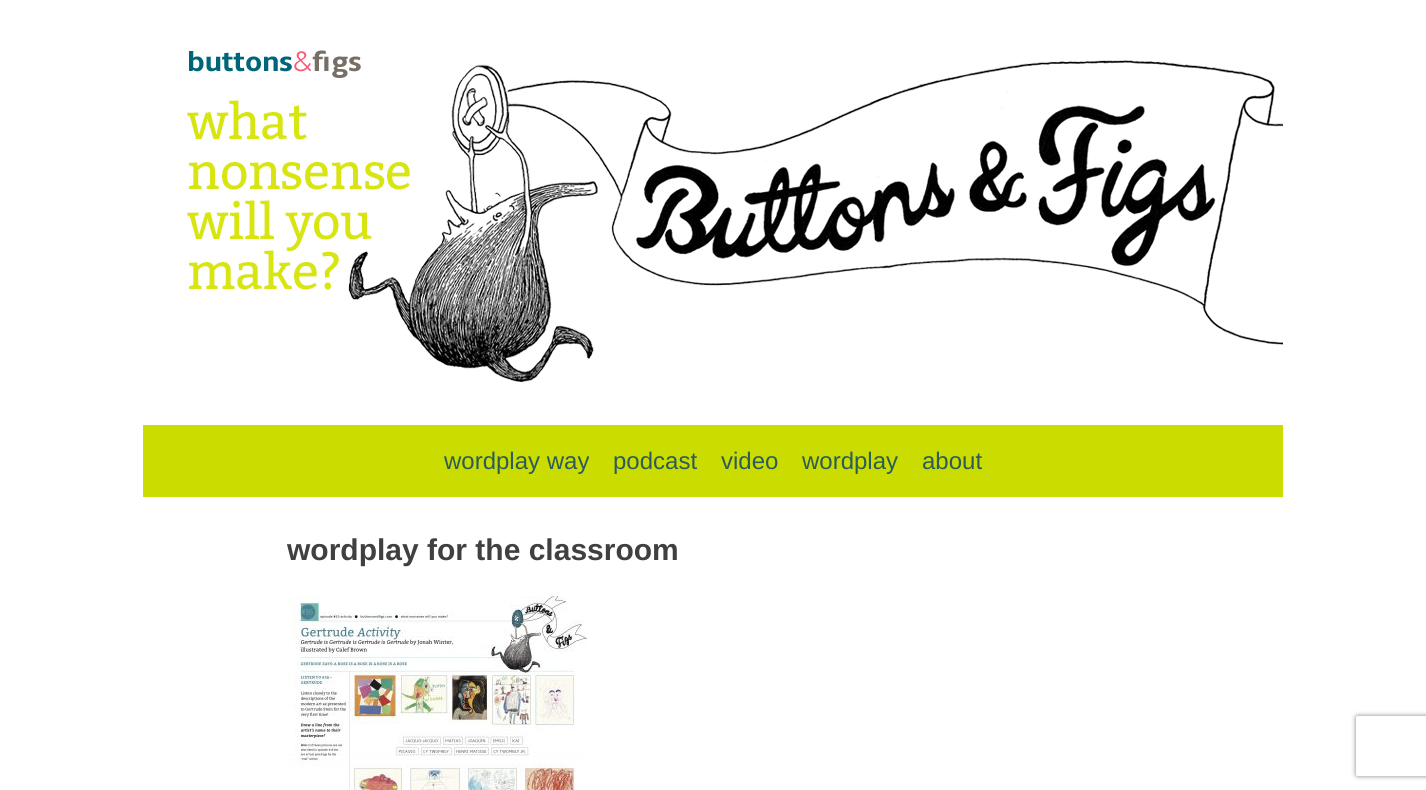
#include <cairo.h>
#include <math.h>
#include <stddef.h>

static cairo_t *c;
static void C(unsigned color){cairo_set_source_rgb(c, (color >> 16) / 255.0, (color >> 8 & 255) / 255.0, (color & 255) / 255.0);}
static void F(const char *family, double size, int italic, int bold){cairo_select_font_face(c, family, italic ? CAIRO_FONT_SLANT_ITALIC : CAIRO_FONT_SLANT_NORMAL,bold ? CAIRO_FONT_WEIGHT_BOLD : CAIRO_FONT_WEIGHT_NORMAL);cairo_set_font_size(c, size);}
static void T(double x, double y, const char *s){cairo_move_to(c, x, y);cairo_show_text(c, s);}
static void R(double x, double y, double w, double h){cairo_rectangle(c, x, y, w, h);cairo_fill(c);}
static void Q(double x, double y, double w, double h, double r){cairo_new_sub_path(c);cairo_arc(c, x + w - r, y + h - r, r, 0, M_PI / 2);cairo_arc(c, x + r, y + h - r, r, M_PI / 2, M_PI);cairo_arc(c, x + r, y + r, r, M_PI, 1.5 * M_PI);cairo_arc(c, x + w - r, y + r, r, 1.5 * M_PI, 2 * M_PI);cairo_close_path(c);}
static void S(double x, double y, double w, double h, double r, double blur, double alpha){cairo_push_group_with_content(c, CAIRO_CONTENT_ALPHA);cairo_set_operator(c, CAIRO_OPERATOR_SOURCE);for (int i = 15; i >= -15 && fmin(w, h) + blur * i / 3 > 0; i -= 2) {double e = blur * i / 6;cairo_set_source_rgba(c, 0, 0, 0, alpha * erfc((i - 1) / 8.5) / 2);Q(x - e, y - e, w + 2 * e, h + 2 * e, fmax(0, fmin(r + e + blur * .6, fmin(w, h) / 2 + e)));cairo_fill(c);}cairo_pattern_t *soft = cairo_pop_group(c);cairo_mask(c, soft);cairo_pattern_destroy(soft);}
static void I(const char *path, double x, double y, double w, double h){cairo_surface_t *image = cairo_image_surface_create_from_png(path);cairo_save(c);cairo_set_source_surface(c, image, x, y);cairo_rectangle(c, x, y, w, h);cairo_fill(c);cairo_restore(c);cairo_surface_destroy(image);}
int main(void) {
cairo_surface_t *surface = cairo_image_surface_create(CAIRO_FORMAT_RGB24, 1426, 790);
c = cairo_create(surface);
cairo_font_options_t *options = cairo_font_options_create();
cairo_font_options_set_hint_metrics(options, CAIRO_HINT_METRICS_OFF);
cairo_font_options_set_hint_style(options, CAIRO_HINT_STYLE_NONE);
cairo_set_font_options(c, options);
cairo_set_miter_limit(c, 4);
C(0xffffff);
cairo_paint(c);
I("1.png",185,49,1098,333);
C(0xcbdd00);
R(143,425,1140,72);
F("Liberation Sans",24,0,0);
C(0x2c5c59);
T(444,469,"wordplay way");
T(613,469,"podcast");
T(721,469,"video");
T(802,469,"wordplay");
T(922,469,"about");
F("Liberation Sans",30,0,1);
C(0x404040);
T(287,560,"wordplay for the classroom");
I("2.png",287,596,300,194);
cairo_save(c);
cairo_set_fill_rule(c,CAIRO_FILL_RULE_EVEN_ODD);
cairo_new_path(c);
cairo_move_to(c,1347,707);
cairo_line_to(c,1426,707);
cairo_line_to(c,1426,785);
cairo_line_to(c,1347,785);
cairo_close_path(c);
cairo_move_to(c,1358,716);
cairo_line_to(c,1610,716);
cairo_curve_to(c,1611,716,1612,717,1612,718);
cairo_line_to(c,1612,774);
cairo_curve_to(c,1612,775,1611,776,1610,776);
cairo_line_to(c,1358,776);
cairo_curve_to(c,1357,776,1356,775,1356,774);
cairo_line_to(c,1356,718);
cairo_curve_to(c,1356,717,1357,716,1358,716);
cairo_close_path(c);
cairo_clip(c);
C(0x808080);
S(1356,716,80,60,2,2.5,1);
cairo_restore(c);
cairo_surface_write_to_png(surface, "o.png");
cairo_font_options_destroy(options);
cairo_destroy(c);
cairo_surface_destroy(surface);
return 0;
}
